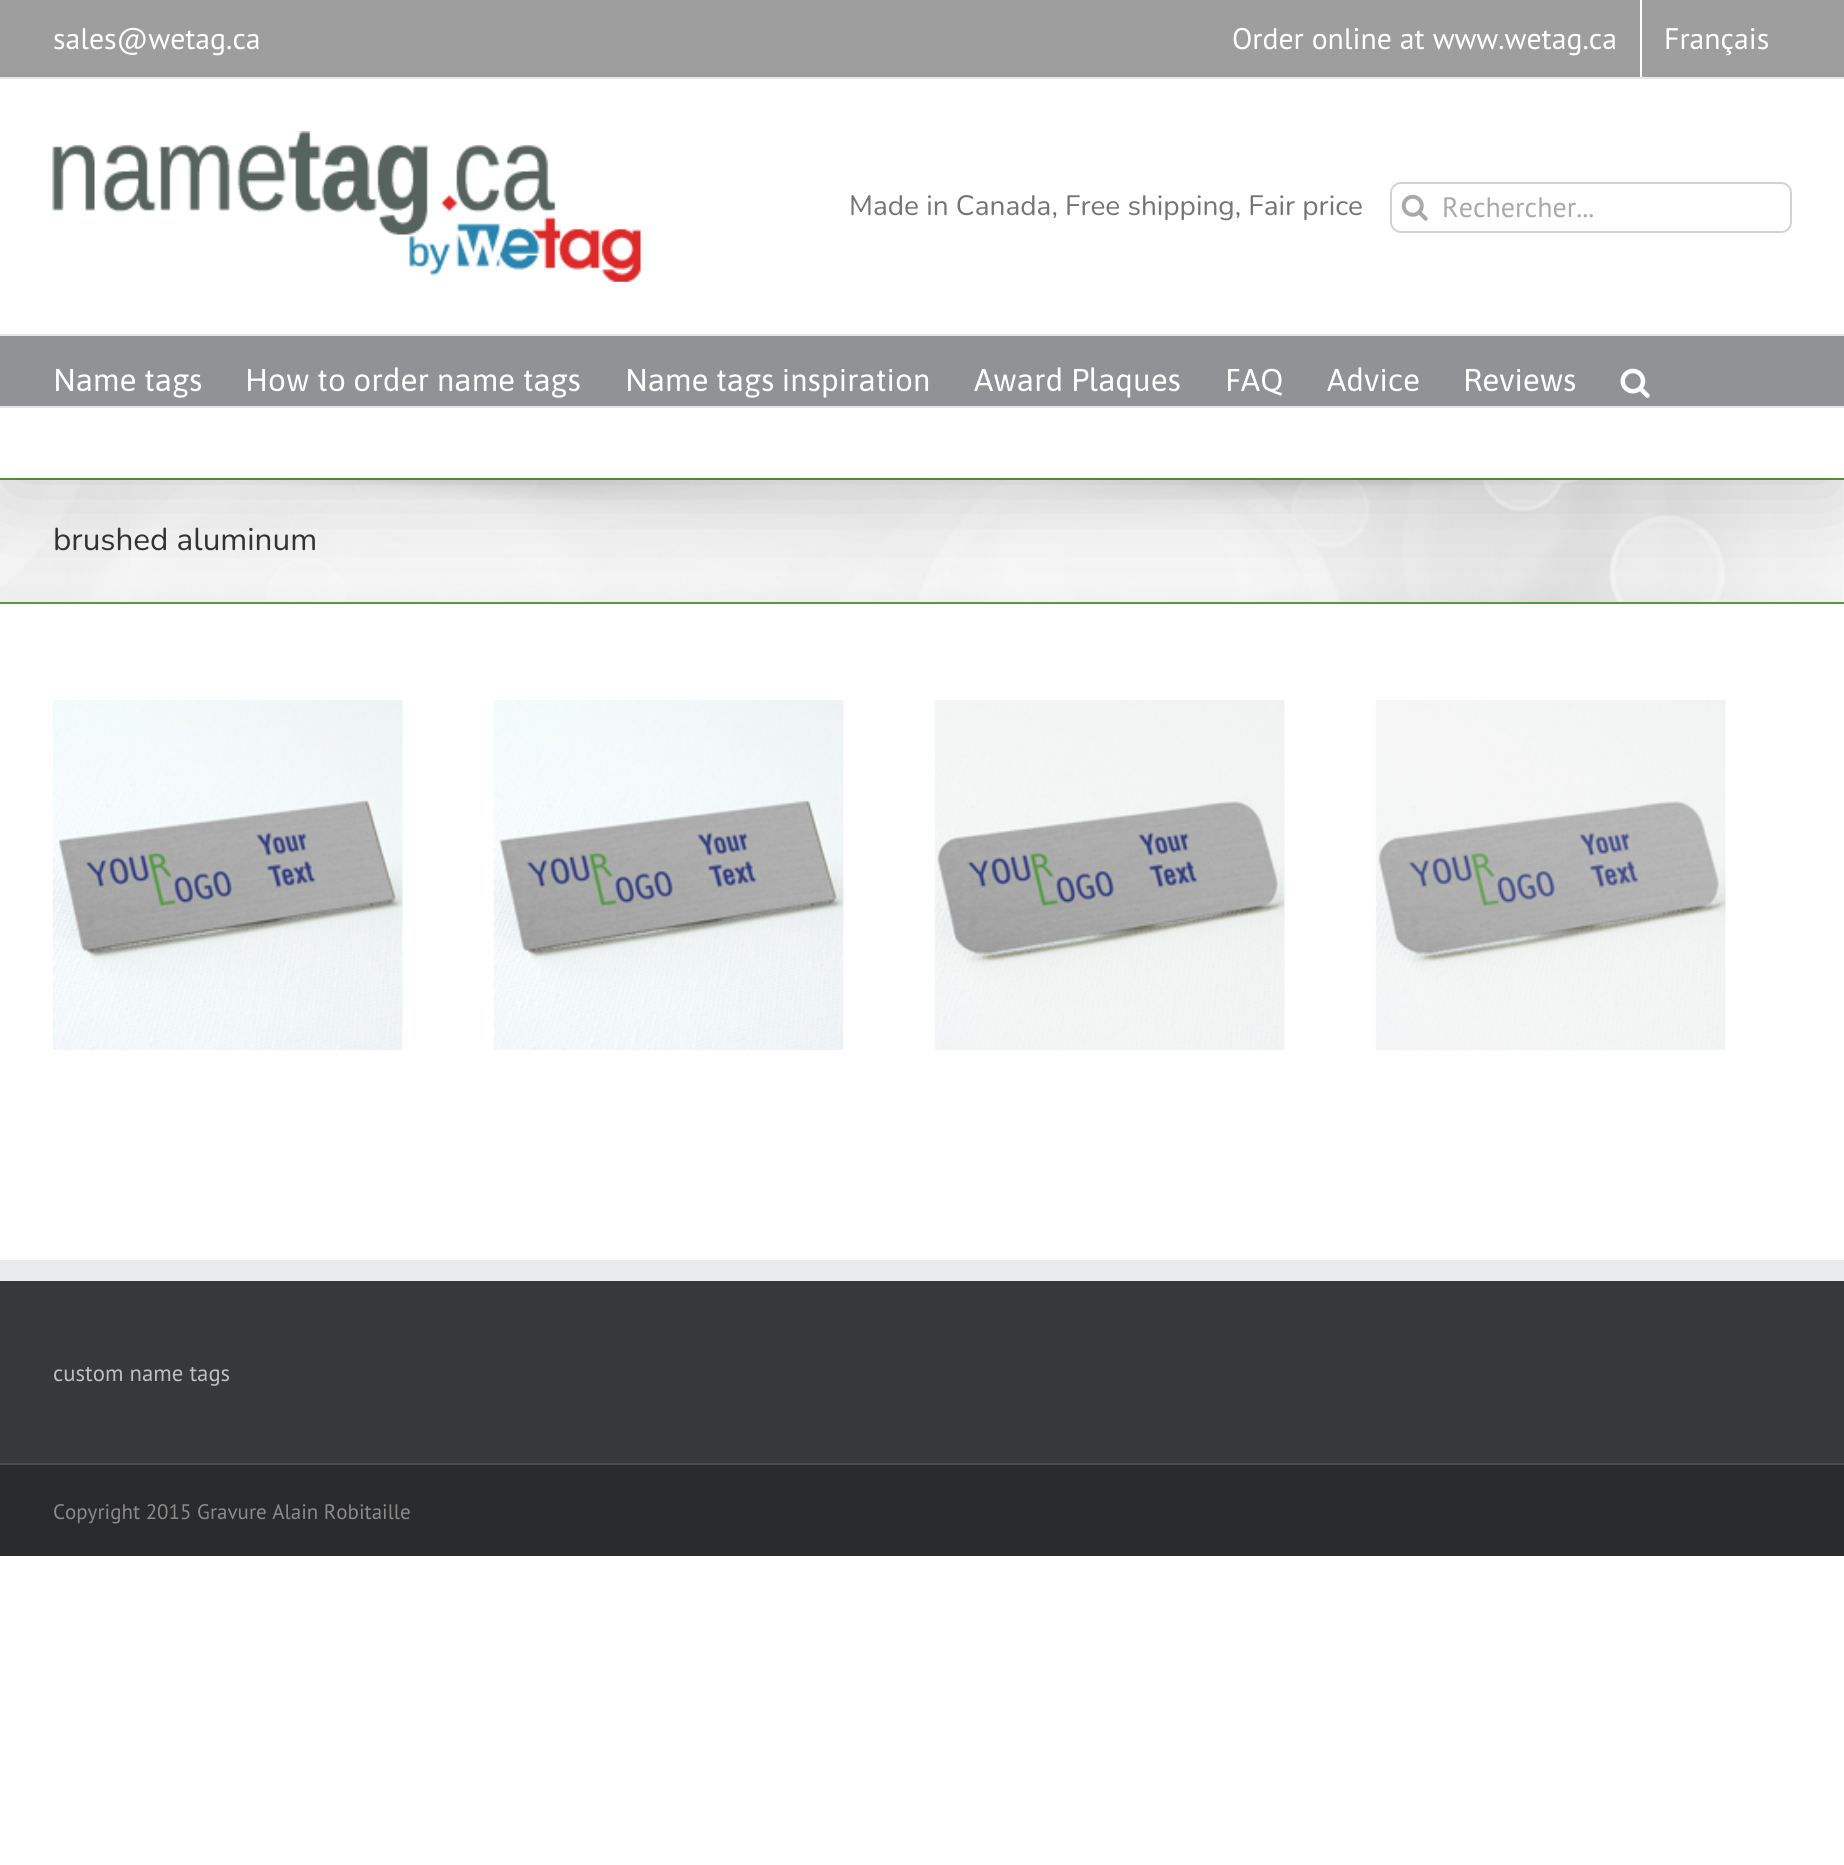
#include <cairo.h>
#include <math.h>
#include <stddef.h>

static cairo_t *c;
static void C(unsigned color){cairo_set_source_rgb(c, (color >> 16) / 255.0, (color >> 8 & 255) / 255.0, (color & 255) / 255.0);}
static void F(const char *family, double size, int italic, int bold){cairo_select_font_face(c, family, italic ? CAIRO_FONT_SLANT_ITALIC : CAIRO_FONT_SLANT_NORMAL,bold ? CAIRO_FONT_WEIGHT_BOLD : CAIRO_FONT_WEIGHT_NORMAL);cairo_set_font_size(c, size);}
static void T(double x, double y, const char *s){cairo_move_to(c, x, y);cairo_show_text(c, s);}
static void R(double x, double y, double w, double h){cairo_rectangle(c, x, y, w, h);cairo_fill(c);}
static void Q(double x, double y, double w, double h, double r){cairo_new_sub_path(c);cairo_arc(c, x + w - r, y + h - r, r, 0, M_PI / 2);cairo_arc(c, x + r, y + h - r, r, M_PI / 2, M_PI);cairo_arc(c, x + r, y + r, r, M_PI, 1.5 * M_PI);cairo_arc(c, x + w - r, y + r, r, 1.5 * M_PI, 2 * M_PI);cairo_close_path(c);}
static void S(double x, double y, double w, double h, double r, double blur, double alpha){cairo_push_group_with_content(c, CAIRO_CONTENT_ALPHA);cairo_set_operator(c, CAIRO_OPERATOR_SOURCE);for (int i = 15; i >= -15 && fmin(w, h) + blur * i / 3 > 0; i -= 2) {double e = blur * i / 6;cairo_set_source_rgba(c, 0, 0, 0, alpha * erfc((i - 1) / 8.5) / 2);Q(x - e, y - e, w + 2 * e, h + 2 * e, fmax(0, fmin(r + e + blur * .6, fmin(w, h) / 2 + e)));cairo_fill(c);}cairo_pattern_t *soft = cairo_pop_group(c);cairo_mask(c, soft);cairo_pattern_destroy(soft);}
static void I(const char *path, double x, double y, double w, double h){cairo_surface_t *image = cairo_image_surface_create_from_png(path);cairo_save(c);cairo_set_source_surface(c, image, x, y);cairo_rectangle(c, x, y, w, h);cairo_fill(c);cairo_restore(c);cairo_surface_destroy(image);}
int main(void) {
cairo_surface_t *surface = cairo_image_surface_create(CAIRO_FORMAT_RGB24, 1844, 1865);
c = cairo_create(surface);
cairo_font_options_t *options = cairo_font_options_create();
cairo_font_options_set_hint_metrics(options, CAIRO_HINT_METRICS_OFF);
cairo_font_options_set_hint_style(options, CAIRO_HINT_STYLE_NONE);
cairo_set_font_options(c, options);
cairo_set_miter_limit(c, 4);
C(0xffffff);
cairo_paint(c);
C(0xf6f6f6);
R(0,480,1844,122);
I("4.png",0,477,1842,125);
C(0x5b9735);
R(0,478,1844,2);
R(0,602,1844,2);
cairo_save(c);
cairo_set_fill_rule(c,CAIRO_FILL_RULE_EVEN_ODD);
cairo_new_path(c);
cairo_move_to(c,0,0);
cairo_line_to(c,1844,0);
cairo_line_to(c,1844,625);
cairo_line_to(c,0,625);
cairo_close_path(c);
cairo_move_to(c,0,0);
cairo_line_to(c,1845,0);
cairo_line_to(c,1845,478);
cairo_line_to(c,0,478);
cairo_close_path(c);
cairo_clip(c);
C(0x000000);
S(4,21,1837,471,0,44,.14);
cairo_restore(c);
C(0x9e9e9e);
R(0,0,1844,77);
C(0xe5e5e5);
R(0,77,1844,2);
F("PT Sans",29.75,0,0);
C(0xffffff);
T(53,49,"sales@wetag.ca");
T(1232,49,"Order online at www.wetag.ca");
R(1640,0,2,77);
T(1664,49,"Français");
C(0xe5e5e5);
R(0,334,1844,2);
I("1.png",52,131,589,151);
F("Nunito ExtraLight",28,0,0);
C(0x747474);
T(849,215,"Made in Canada, Free shipping, Fair price");
Q(1391,183,400,49,10);
C(0xd2d2d2);
cairo_stroke(c);
I("2.png",1401,194,27,27);
F("PT Sans",28,0,0);
C(0xaaa9a9);
T(1442,217,"Rechercher...");
C(0x919295);
R(0,336,1844,70);
C(0xe5e5e5);
R(0,406,1844,2);
F("Asap",31.5,0,0);
C(0xffffff);
T(53,391,"Name tags");
T(245,391,"How to order name tags");
T(625,391,"Name tags inspiration");
T(974,391,"Award Plaques");
T(1225,391,"FAQ");
T(1327,391,"Advice");
T(1463,391,"Reviews");
I("3.png",1620,368,30,30);
F("Nunito ExtraLight",31.5,0,0);
C(0x333333);
T(53,550,"brushed aluminum");
I("5.png",52,700,351,350);
I("6.png",493,700,351,350);
I("7.png",934,700,351,350);
I("8.png",1375,700,351,350);
C(0x363839);
R(0,1281,1844,182);
C(0xe9eaee);
R(0,1260,1844,21);
F("PT Sans",22.75,0,0);
C(0xbfbfbf);
T(53,1381,"custom name tags");
C(0x282a2b);
R(0,1465,1844,91);
C(0x4b4c4d);
R(0,1463,1844,2);
F("PT Sans",21,0,0);
C(0x8c8989);
T(53,1519,"Copyright 2015 Gravure Alain Robitaille");
cairo_surface_write_to_png(surface, "o.png");
cairo_font_options_destroy(options);
cairo_destroy(c);
cairo_surface_destroy(surface);
return 0;
}
